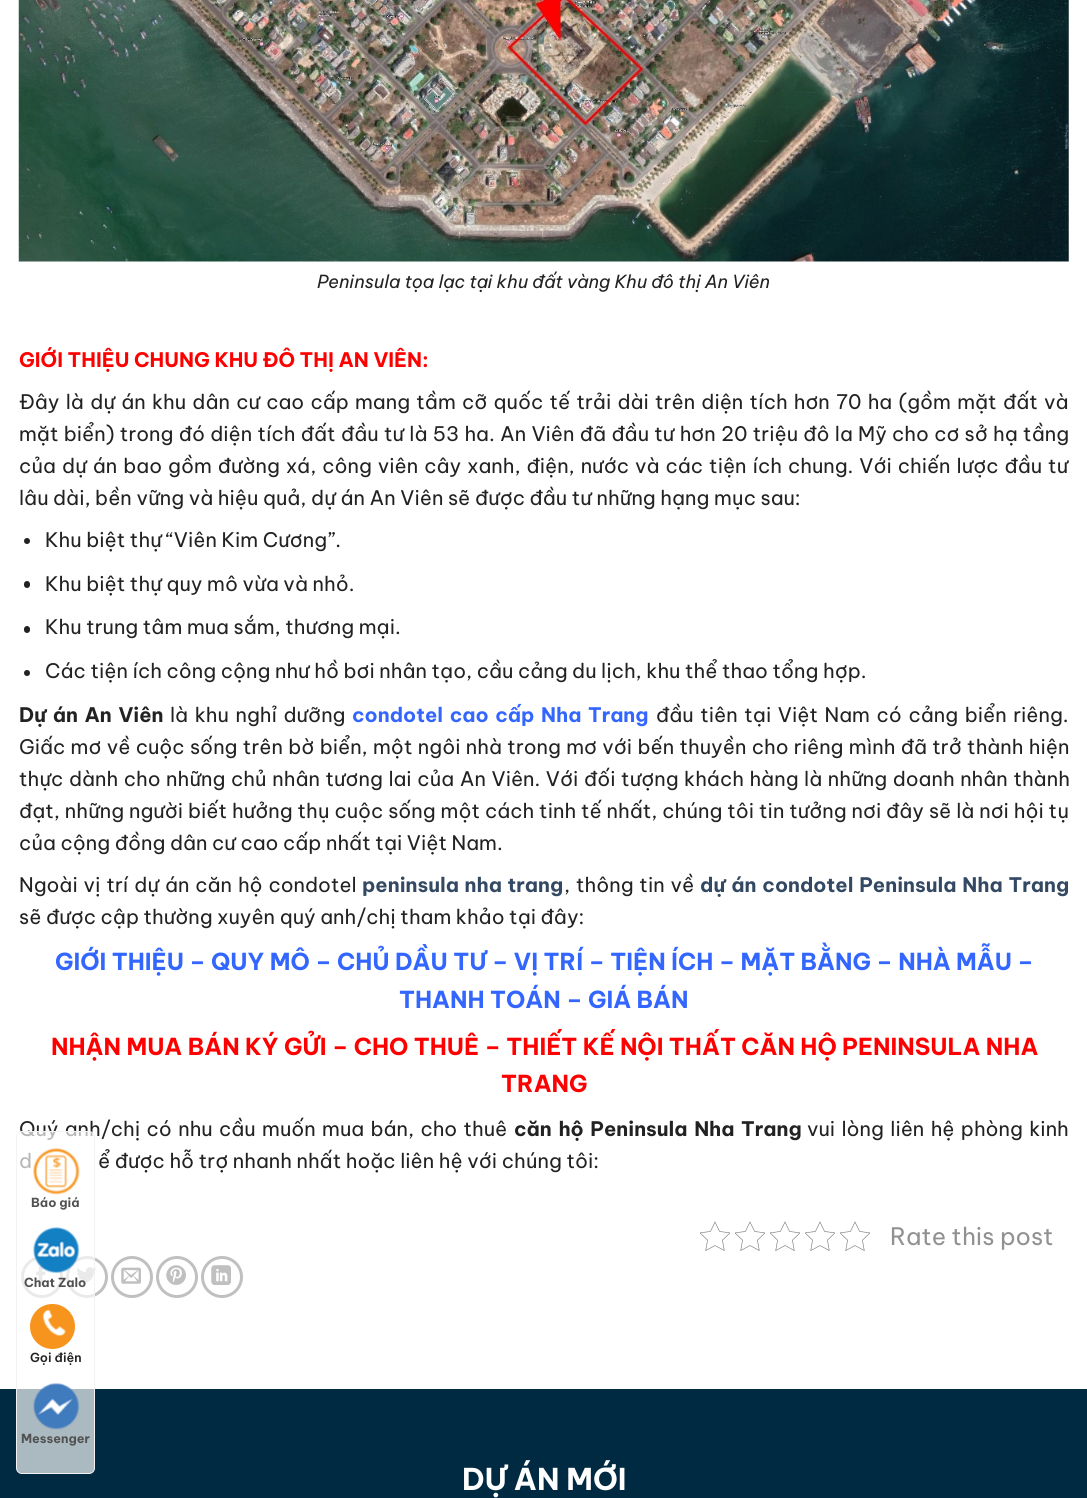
#include <cairo.h>
#include <math.h>
#include <stddef.h>

static cairo_t *c;
static void C(unsigned color){cairo_set_source_rgb(c, (color >> 16) / 255.0, (color >> 8 & 255) / 255.0, (color & 255) / 255.0);}
static void F(const char *family, double size, int italic, int bold){cairo_select_font_face(c, family, italic ? CAIRO_FONT_SLANT_ITALIC : CAIRO_FONT_SLANT_NORMAL,bold ? CAIRO_FONT_WEIGHT_BOLD : CAIRO_FONT_WEIGHT_NORMAL);cairo_set_font_size(c, size);}
static void T(double x, double y, const char *s){cairo_move_to(c, x, y);cairo_show_text(c, s);}
static void L(double x, double y, const char *s, double letter, double word){cairo_move_to(c, x, y);while (*s) {char ch[5] = {0};int n = 0;do ch[n++] = *s++; while ((*s & 0xC0) == 0x80);cairo_show_text(c, ch);cairo_rel_move_to(c, letter + word * (*ch == ' '), 0);}}
static void R(double x, double y, double w, double h){cairo_rectangle(c, x, y, w, h);cairo_fill(c);}
static void Q(double x, double y, double w, double h, double r){cairo_new_sub_path(c);cairo_arc(c, x + w - r, y + h - r, r, 0, M_PI / 2);cairo_arc(c, x + r, y + h - r, r, M_PI / 2, M_PI);cairo_arc(c, x + r, y + r, r, M_PI, 1.5 * M_PI);cairo_arc(c, x + w - r, y + r, r, 1.5 * M_PI, 2 * M_PI);cairo_close_path(c);}
static void I(const char *path, double x, double y, double w, double h){cairo_surface_t *image = cairo_image_surface_create_from_png(path);cairo_save(c);cairo_set_source_surface(c, image, x, y);cairo_rectangle(c, x, y, w, h);cairo_fill(c);cairo_restore(c);cairo_surface_destroy(image);}
int main(void) {
cairo_surface_t *surface = cairo_image_surface_create(CAIRO_FORMAT_RGB24, 1087, 1498);
c = cairo_create(surface);
cairo_font_options_t *options = cairo_font_options_create();
cairo_font_options_set_hint_metrics(options, CAIRO_HINT_METRICS_OFF);
cairo_font_options_set_hint_style(options, CAIRO_HINT_STYLE_NONE);
cairo_set_font_options(c, options);
cairo_set_miter_limit(c, 4);
C(0xffffff);
cairo_paint(c);
I("1.png",18,0,1051,262);
F("Be Vietnam Pro",18,1,0);
C(0x222222);
T(317,288,"Peninsula tọa lạc tại khu đất vàng Khu đô thị An Viên");
F("Be Vietnam Pro",20,0,1);
C(0xff0000);
T(19,367,"GIỚI THIỆU CHUNG KHU ĐÔ THỊ AN VIÊN:");
F("Be Vietnam Pro",20,0,0);
C(0x222222);
L(19,409,"Đây là dự án khu dân cư cao cấp mang tầm cỡ quốc tế trải dài trên diện tích hơn 70 ha (gồm mặt đất và",0,1.65);
L(19,441,"mặt biển) trong đó diện tích đất đầu tư là 53 ha. An Viên đã đầu tư hơn 20 triệu đô la Mỹ cho cơ sở hạ tầng",0,.7);
L(19,473,"của dự án bao gồm đường xá, công viên cây xanh, điện, nước và các tiện ích chung. Với chiến lược đầu tư",0,1.4);
T(19,505,"lâu dài, bền vững và hiệu quả, dự án An Viên sẽ được đầu tư những hạng mục sau:");
cairo_new_path(c);
cairo_arc(c,27,541,3,0,2 * M_PI);
cairo_fill(c);
T(45,547,"Khu biệt thự “Viên Kim Cương”.");
Q(24,581,6,7,3);
cairo_fill(c);
T(45,591,"Khu biệt thự quy mô vừa và nhỏ.");
Q(24,626,6,7,3);
cairo_fill(c);
T(45,634,"Khu trung tâm mua sắm, thương mại.");
cairo_new_path(c);
cairo_arc(c,27,673,3,0,2 * M_PI);
cairo_fill(c);
T(45,678,"Các tiện ích công cộng như hồ bơi nhân tạo, cầu cảng du lịch, khu thể thao tổng hợp.");
F("Be Vietnam Pro",20,0,1);
L(19,722,"Dự án An Viên",0,2);
F("Be Vietnam Pro",20,0,0);
L(170,722,"là khu nghỉ dưỡng",0,2);
F("Be Vietnam Pro",20,0,1);
C(0x3366ff);
L(352,722,"condotel cao cấp Nha Trang",0,2);
F("Be Vietnam Pro",20,0,0);
C(0x222222);
L(656,722,"đầu tiên tại Việt Nam có cảng biển riêng.",0,2);
L(19,754,"Giấc mơ về cuộc sống trên bờ biển, một ngôi nhà trong mơ với bến thuyền cho riêng mình đã trở thành hiện",0,.75);
L(19,786,"thực dành cho những chủ nhân tương lai của An Viên. Với đối tượng khách hàng là những doanh nhân thành",0,1);
L(19,818,"đạt, những người biết hưởng thụ cuộc sống một cách tinh tế nhất, chúng tôi tin tưởng nơi đây sẽ là nơi hội tụ",0,.3);
T(19,850,"của cộng đồng dân cư cao cấp nhất tại Việt Nam.");
L(19,892,"Ngoài vị trí dự án căn hộ condotel",0,1.25);
F("Be Vietnam Pro",20,0,1);
C(0x334862);
L(362,892,"peninsula nha trang",0,1);
F("Be Vietnam Pro",20,0,0);
C(0x222222);
L(564,892,", thông tin về",0,1.25);
F("Be Vietnam Pro",20,0,1);
C(0x334862);
L(700,892,"dự án condotel Peninsula Nha Trang",0,1.25);
F("Be Vietnam Pro",20,0,0);
C(0x222222);
T(19,924,"sẽ được cập thường xuyên quý anh/chị tham khảo tại đây:");
F("Be Vietnam Pro",23.35,0,1);
C(0x3366ff);
T(55,970,"GIỚI THIỆU – QUY MÔ – CHỦ DẦU TƯ – VỊ TRÍ – TIỆN ÍCH – MẶT BẰNG – NHÀ MẪU –");
T(399,1008,"THANH TOÁN – GIÁ BÁN");
C(0xff0000);
T(51,1055,"NHẬN MUA BÁN KÝ GỬI – CHO THUÊ – THIẾT KẾ NỘI THẤT CĂN HỘ PENINSULA NHA");
T(501,1092,"TRANG");
F("Be Vietnam Pro",20,0,0);
C(0x222222);
L(19,1136,"Quý anh/chị có nhu cầu muốn mua bán, cho thuê",0,1.75);
F("Be Vietnam Pro",20,0,1);
L(514,1136,"căn hộ Peninsula Nha Trang",0,2);
F("Be Vietnam Pro",20,0,0);
L(807,1136,"vui lòng liên hệ phòng kinh",0,1.75);
T(19,1168,"d");
T(98,1168,"ể được hỗ trợ nhanh nhất hoặc liên hệ với chúng tôi:");
I("2.png",700,1221,30,30);
I("2.png",735,1221,30,30);
I("2.png",770,1221,30,30);
I("2.png",805,1221,30,30);
I("2.png",840,1221,30,30);
F("Be Vietnam Pro",24,0,0);
C(0x919191);
T(890,1245,"Rate this post");
cairo_new_path(c);
cairo_arc(c,42,1277,19.5,0,2 * M_PI);
C(0xc0c0c0);
cairo_set_line_width(c,3);
cairo_stroke(c);
I("3.png",36,1265,10,20);
cairo_arc(c,87,1277,19.5,0,2 * M_PI);
cairo_stroke(c);
I("4.png",76,1267,20,17);
cairo_arc(c,132,1277,19.5,0,2 * M_PI);
cairo_stroke(c);
I("5.png",121,1267,20,17);
cairo_arc(c,177,1277,19.5,0,2 * M_PI);
cairo_stroke(c);
I("6.png",166,1265,20,20);
cairo_arc(c,222,1277,19.5,0,2 * M_PI);
cairo_stroke(c);
I("7.png",211,1265,20,20);
C(0x002a42);
R(0,1389,1087,109);
F("Be Vietnam Pro",30,0,1);
C(0xffffff);
T(462,1490,"DỰ ÁN MỚI");
cairo_set_source_rgba(c,1,1,1,0.67);
Q(16.5,1131.5,78,342,5.5);
cairo_fill_preserve(c);
C(0xf2f2f2);
cairo_set_line_width(c,1);
cairo_stroke(c);
I("8.png",33,1148,47,47);
F("Be Vietnam Pro",12.5,0,1);
C(0x515151);
T(31,1207,"Báo giá");
I("9.png",33,1227,47,46);
T(24,1287,"Chat Zalo");
C(0xf7941d);
cairo_new_path(c);
cairo_arc(c,52.5,1326.5,22.5,0,2 * M_PI);
cairo_fill(c);
I("10.png",42,1309,24,27);
F("Be Vietnam Pro SemiBold",12.5,0,0);
C(0x222222);
T(30,1362,"Gọi điện");
I("11.png",33,1383,47,47);
F("Be Vietnam Pro",12.5,0,1);
C(0x515151);
T(21,1443,"Messenger");
cairo_surface_write_to_png(surface, "o.png");
cairo_font_options_destroy(options);
cairo_destroy(c);
cairo_surface_destroy(surface);
return 0;
}
